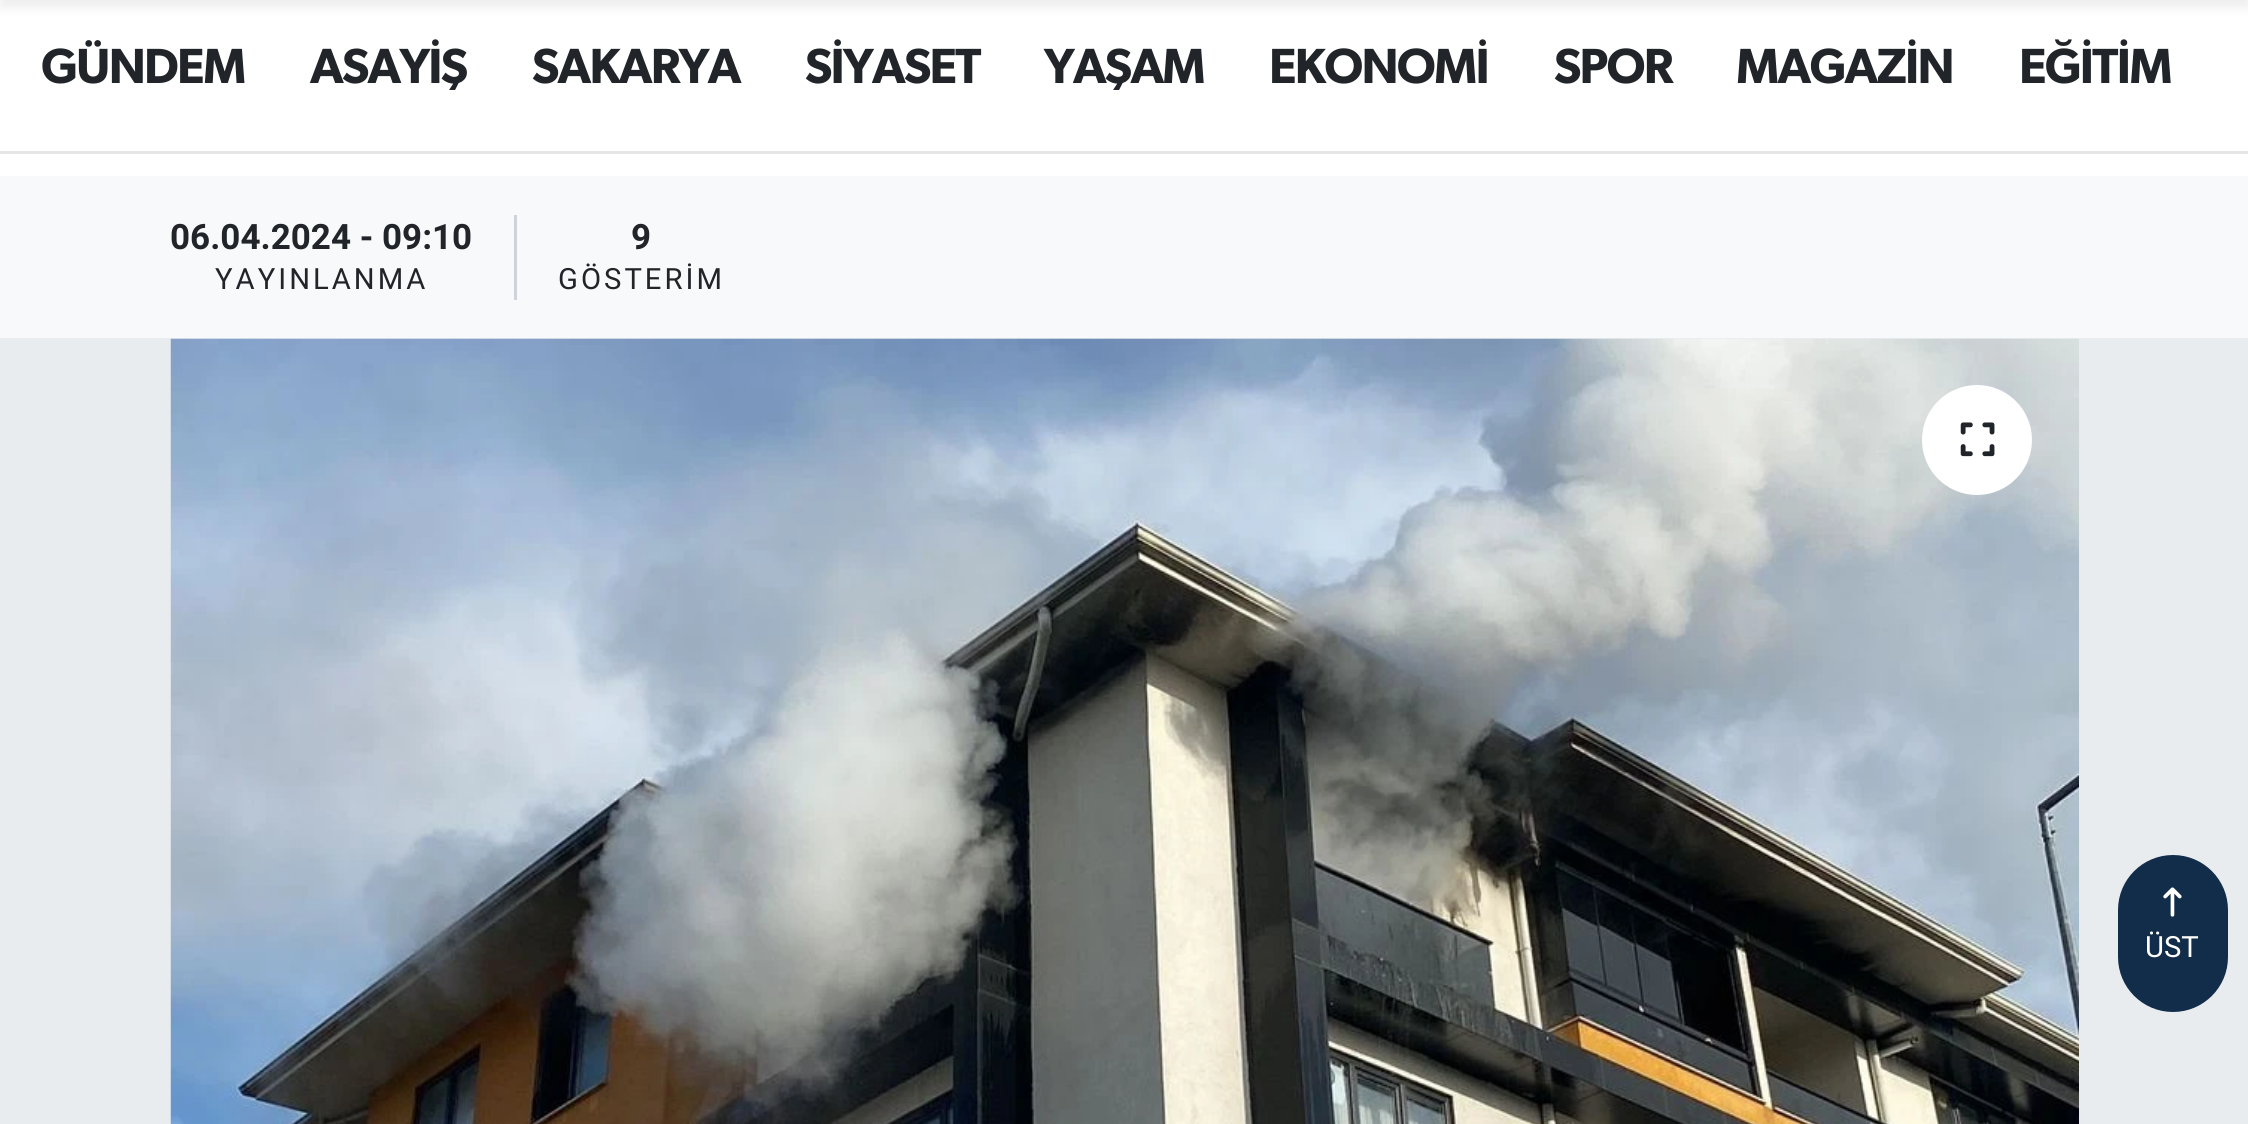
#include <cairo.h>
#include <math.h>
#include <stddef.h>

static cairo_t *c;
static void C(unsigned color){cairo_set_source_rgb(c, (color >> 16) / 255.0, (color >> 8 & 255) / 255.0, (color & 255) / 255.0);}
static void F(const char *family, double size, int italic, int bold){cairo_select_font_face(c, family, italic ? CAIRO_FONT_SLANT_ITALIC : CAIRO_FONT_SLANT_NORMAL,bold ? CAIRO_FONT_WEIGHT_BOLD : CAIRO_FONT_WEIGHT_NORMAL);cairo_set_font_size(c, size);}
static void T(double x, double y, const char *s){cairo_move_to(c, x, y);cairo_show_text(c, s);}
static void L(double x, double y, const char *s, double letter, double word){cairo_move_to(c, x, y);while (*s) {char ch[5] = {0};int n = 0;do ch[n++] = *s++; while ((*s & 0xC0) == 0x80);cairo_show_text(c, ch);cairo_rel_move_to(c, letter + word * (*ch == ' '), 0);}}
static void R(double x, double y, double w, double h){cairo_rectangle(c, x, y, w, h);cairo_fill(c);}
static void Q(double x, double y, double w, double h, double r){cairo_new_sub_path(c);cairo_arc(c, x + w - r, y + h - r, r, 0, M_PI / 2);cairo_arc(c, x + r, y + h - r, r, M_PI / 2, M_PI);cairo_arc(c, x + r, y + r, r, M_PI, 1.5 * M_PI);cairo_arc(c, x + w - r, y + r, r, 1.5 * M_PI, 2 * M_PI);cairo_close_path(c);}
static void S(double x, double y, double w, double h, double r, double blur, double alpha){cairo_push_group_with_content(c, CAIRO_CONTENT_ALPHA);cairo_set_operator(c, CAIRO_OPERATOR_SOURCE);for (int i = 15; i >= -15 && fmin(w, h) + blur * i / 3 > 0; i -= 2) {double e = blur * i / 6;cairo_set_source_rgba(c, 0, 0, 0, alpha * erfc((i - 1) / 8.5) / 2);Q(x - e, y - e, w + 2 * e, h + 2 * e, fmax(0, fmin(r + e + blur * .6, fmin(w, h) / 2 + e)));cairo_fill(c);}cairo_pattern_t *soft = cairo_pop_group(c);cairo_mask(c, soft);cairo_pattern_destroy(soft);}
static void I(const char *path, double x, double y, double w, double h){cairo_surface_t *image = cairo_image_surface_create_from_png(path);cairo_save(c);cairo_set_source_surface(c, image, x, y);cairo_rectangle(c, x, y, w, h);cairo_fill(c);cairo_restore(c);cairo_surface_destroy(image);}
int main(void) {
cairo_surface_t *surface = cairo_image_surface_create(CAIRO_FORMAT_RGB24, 2248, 1124);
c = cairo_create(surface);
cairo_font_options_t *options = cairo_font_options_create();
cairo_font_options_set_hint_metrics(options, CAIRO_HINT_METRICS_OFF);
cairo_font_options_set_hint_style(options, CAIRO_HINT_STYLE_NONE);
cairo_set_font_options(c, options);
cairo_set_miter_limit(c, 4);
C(0xe9ecef);
cairo_paint(c);
C(0xffffff);
R(0,0,2248,151);
C(0x000000);
S(0,-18,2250,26,0,6,.07);
C(0xe6e6e6);
R(0,151,2248,3);
F("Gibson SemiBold",49.5,0,0);
C(0x212529);
L(41,83,"GÜNDEM",-1.75,0);
L(310,83,"ASAYİŞ",-1.75,0);
L(532,83,"SAKARYA",-1.75,0);
L(805,83,"SİYASET",-1.75,0);
L(1044,83,"YAŞAM",-1.75,0);
L(1269,83,"EKONOMİ",-1.75,0);
L(1554,83,"SPOR",-1.75,0);
L(1736,83,"MAGAZİN",-1.75,0);
L(2019,83,"EĞİTİM",-1.75,0);
C(0xffffff);
R(0,154,2248,22);
C(0xf8f9fa);
R(0,176,2248,162);
C(0xced4da);
R(514,215,3,85);
F("Roboto",35,0,1);
C(0x212529);
T(170,249,"06.04.2024 - 09:10");
F("Roboto",29.25,0,0);
L(215,289,"YAYINLANMA",3,0);
F("Roboto",35,0,1);
T(631,249,"9");
F("Roboto",29.25,0,0);
L(558,289,"GÖSTERİM",3,0);
I("1.png",170,338,1909,786);
C(0xffffff);
cairo_arc(c,1977,440,55,0,2 * M_PI);
cairo_fill(c);
I("2.png",1960,422,35,35);
C(0x122d4a);
Q(2118,855,110,157,55);
cairo_fill(c);
I("3.png",2163,887,19,30);
C(0xffffff);
T(2145,957,"ÜST");
cairo_surface_write_to_png(surface, "o.png");
cairo_font_options_destroy(options);
cairo_destroy(c);
cairo_surface_destroy(surface);
return 0;
}
